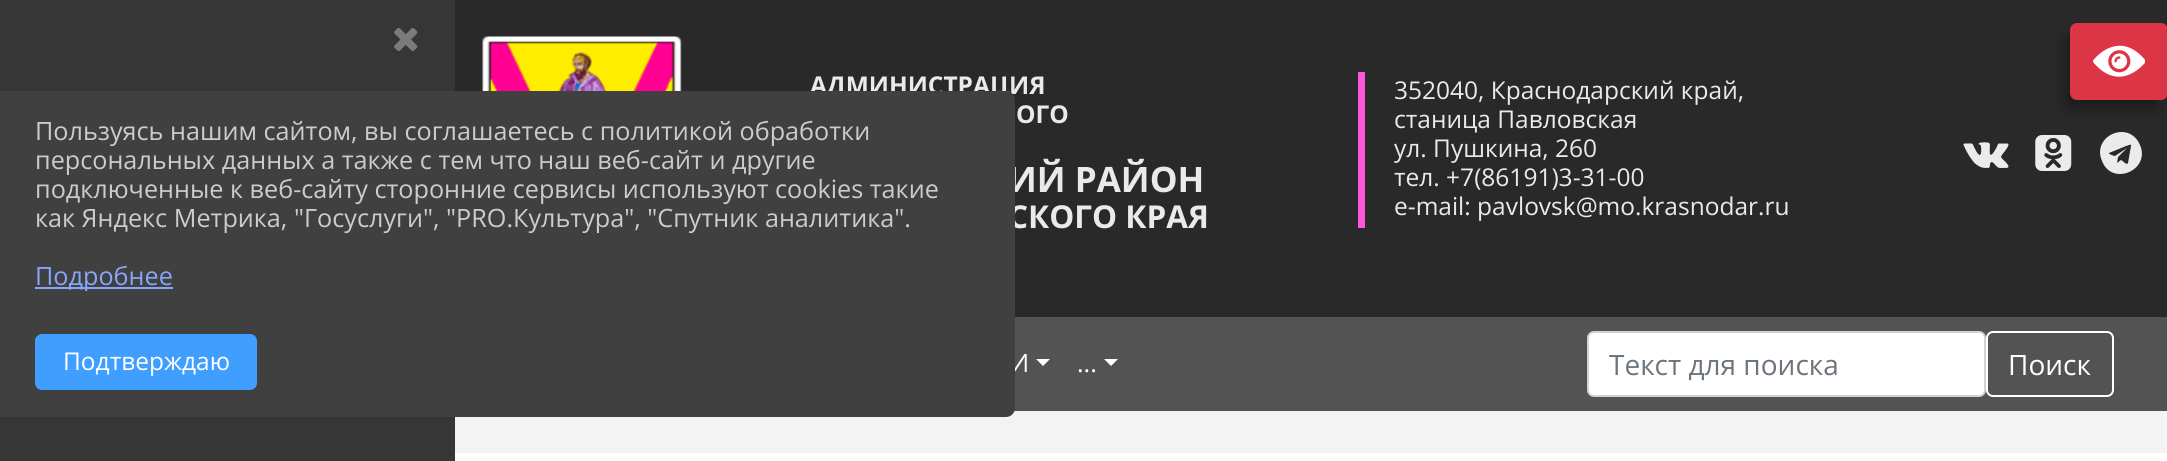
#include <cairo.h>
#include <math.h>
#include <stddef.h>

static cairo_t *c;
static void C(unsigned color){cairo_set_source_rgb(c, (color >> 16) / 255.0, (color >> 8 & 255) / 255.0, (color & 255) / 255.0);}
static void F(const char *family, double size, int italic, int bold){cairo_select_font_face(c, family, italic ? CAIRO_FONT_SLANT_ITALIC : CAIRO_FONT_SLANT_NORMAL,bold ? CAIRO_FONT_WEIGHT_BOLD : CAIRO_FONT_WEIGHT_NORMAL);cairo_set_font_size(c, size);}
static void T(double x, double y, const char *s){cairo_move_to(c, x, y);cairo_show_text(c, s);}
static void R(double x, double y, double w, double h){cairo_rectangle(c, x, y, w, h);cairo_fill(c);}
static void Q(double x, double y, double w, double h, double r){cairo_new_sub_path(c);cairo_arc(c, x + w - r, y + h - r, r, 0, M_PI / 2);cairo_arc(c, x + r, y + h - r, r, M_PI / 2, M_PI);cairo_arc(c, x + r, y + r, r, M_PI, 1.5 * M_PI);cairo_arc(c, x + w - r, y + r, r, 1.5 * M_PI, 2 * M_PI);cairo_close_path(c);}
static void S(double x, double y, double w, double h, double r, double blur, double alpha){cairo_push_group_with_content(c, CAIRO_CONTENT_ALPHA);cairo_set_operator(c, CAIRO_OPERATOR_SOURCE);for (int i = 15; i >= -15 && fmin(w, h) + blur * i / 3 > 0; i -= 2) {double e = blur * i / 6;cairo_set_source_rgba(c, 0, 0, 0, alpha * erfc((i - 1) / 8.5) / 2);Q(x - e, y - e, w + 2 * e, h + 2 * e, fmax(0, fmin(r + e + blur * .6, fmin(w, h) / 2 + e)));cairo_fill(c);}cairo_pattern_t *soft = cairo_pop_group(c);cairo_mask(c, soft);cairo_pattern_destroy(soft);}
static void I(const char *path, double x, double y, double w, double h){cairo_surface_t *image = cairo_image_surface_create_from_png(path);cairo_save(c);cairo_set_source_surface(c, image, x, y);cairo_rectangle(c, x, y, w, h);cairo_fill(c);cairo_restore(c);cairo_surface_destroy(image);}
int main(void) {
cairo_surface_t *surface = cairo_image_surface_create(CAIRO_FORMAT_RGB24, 2167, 461);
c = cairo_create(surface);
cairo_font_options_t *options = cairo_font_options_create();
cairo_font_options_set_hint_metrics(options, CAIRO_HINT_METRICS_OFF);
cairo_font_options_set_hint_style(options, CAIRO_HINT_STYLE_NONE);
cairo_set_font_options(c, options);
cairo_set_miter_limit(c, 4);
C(0xffffff);
cairo_paint(c);
I("1.png",455,411,1712,42);
C(0x373636);
R(0,0,455,461);
C(0x292929);
R(455,0,1712,317);
F("Open Sans",24.5,0,1);
C(0xeaeaea);
T(810,94,"АДМИНИСТРАЦИЯ");
F("Open Sans",35,0,1);
T(1008,192,"ИЙ РАЙОН");
F("Open Sans",31.5,0,1);
T(1008,228,"СКОГО КРАЯ");
C(0x535353);
R(1014,317,1153,94);
F("Open Sans",25.2,0,0);
C(0xffffff);
T(1010,372,"И");
C(0x404040);
cairo_new_path(c);
cairo_move_to(c,0,91);
cairo_line_to(c,1006,91);
cairo_curve_to(c,1011,91,1015,95,1015,100);
cairo_line_to(c,1015,408);
cairo_curve_to(c,1015,413,1011,417,1006,417);
cairo_line_to(c,0,417);
cairo_close_path(c);
cairo_fill(c);
C(0xcccccc);
T(35,140,"Пользуясь нашим сайтом, вы соглашаетесь с политикой обработки");
T(35,169,"персональных данных а также с тем что наш веб-сайт и другие");
T(35,198,"подключенные к веб-сайту сторонние сервисы используют cookies такие");
T(35,227,"как Яндекс Метрика, \"Госуслуги\", \"PRO.Культура\", \"Спутник аналитика\".");
C(0x85a6f9);
R(35,287,138,2);
T(35,285,"Подробнее");
C(0x409eff);
Q(36,335,220,54,6);
cairo_fill_preserve(c);
cairo_stroke(c);
F("Open Sans",24.5,0,0);
C(0xffffff);
T(63,370,"Подтверждаю");
I("2.png",394,28,24,23);
I("3.png",482,36,200,55);
F("Open Sans",24.5,0,1);
C(0xeaeaea);
T(1016,123,"ОГО");
C(0xff54dc);
R(1358,72,7,156);
F("Open Sans",24.5,0,0);
C(0xeaeaea);
T(1394,99,"352040, Краснодарский край,");
T(1394,128,"станица Павловская");
T(1394,157,"ул. Пушкина, 260");
T(1394,186,"тел. +7(86191)3-31-00");
T(1394,215,"e-mail: pavlovsk@mo.krasnodar.ru");
I("4.png",1963,142,46,26);
I("5.png",2035,135,37,36);
C(0xebebeb);
cairo_new_path(c);
cairo_move_to(c,2128,163);
cairo_line_to(c,2131,146);
cairo_curve_to(c,2132,143,2127,146,2126,146);
cairo_line_to(c,2109,153);
cairo_curve_to(c,2108,154,2114,156,2115,156);
cairo_line_to(c,2127,148);
cairo_curve_to(c,2127,148,2128,148,2127,148);
cairo_line_to(c,2118,157);
cairo_line_to(c,2117,163);
cairo_line_to(c,2121,160);
cairo_curve_to(c,2122,160,2127,166,2128,163);
cairo_close_path(c);
cairo_move_to(c,2140,145);
cairo_curve_to(c,2151,170,2112,187,2102,161);
cairo_curve_to(c,2091,136,2129,119,2140,145);
cairo_close_path(c);
cairo_fill(c);
C(0xffffff);
cairo_new_path(c);
cairo_move_to(c,1036,359);
cairo_line_to(c,1050,359);
cairo_line_to(c,1043,366);
cairo_close_path(c);
cairo_fill(c);
cairo_new_path(c);
cairo_move_to(c,1104,359);
cairo_line_to(c,1118,359);
cairo_line_to(c,1111,366);
cairo_close_path(c);
cairo_fill(c);
F("Open Sans",25.2,0,0);
T(1077,372,"...");
Q(1588,332,397,64,6);
cairo_fill_preserve(c);
C(0xced4da);
cairo_stroke(c);
F("Open Sans",28,0,0);
C(0x6c757d);
T(1609,375,"Текст для поиска");
Q(1987,332,126,64,6);
C(0xffffff);
cairo_stroke(c);
T(2008,375,"Поиск");
C(0x000000);
S(2065,35,95,74,5,7,.35);
C(0xdc3545);
Q(2071,24,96,75,6);
cairo_fill_preserve(c);
cairo_stroke(c);
I("6.png",2093,45,52,32);
cairo_surface_write_to_png(surface, "o.png");
cairo_font_options_destroy(options);
cairo_destroy(c);
cairo_surface_destroy(surface);
return 0;
}
